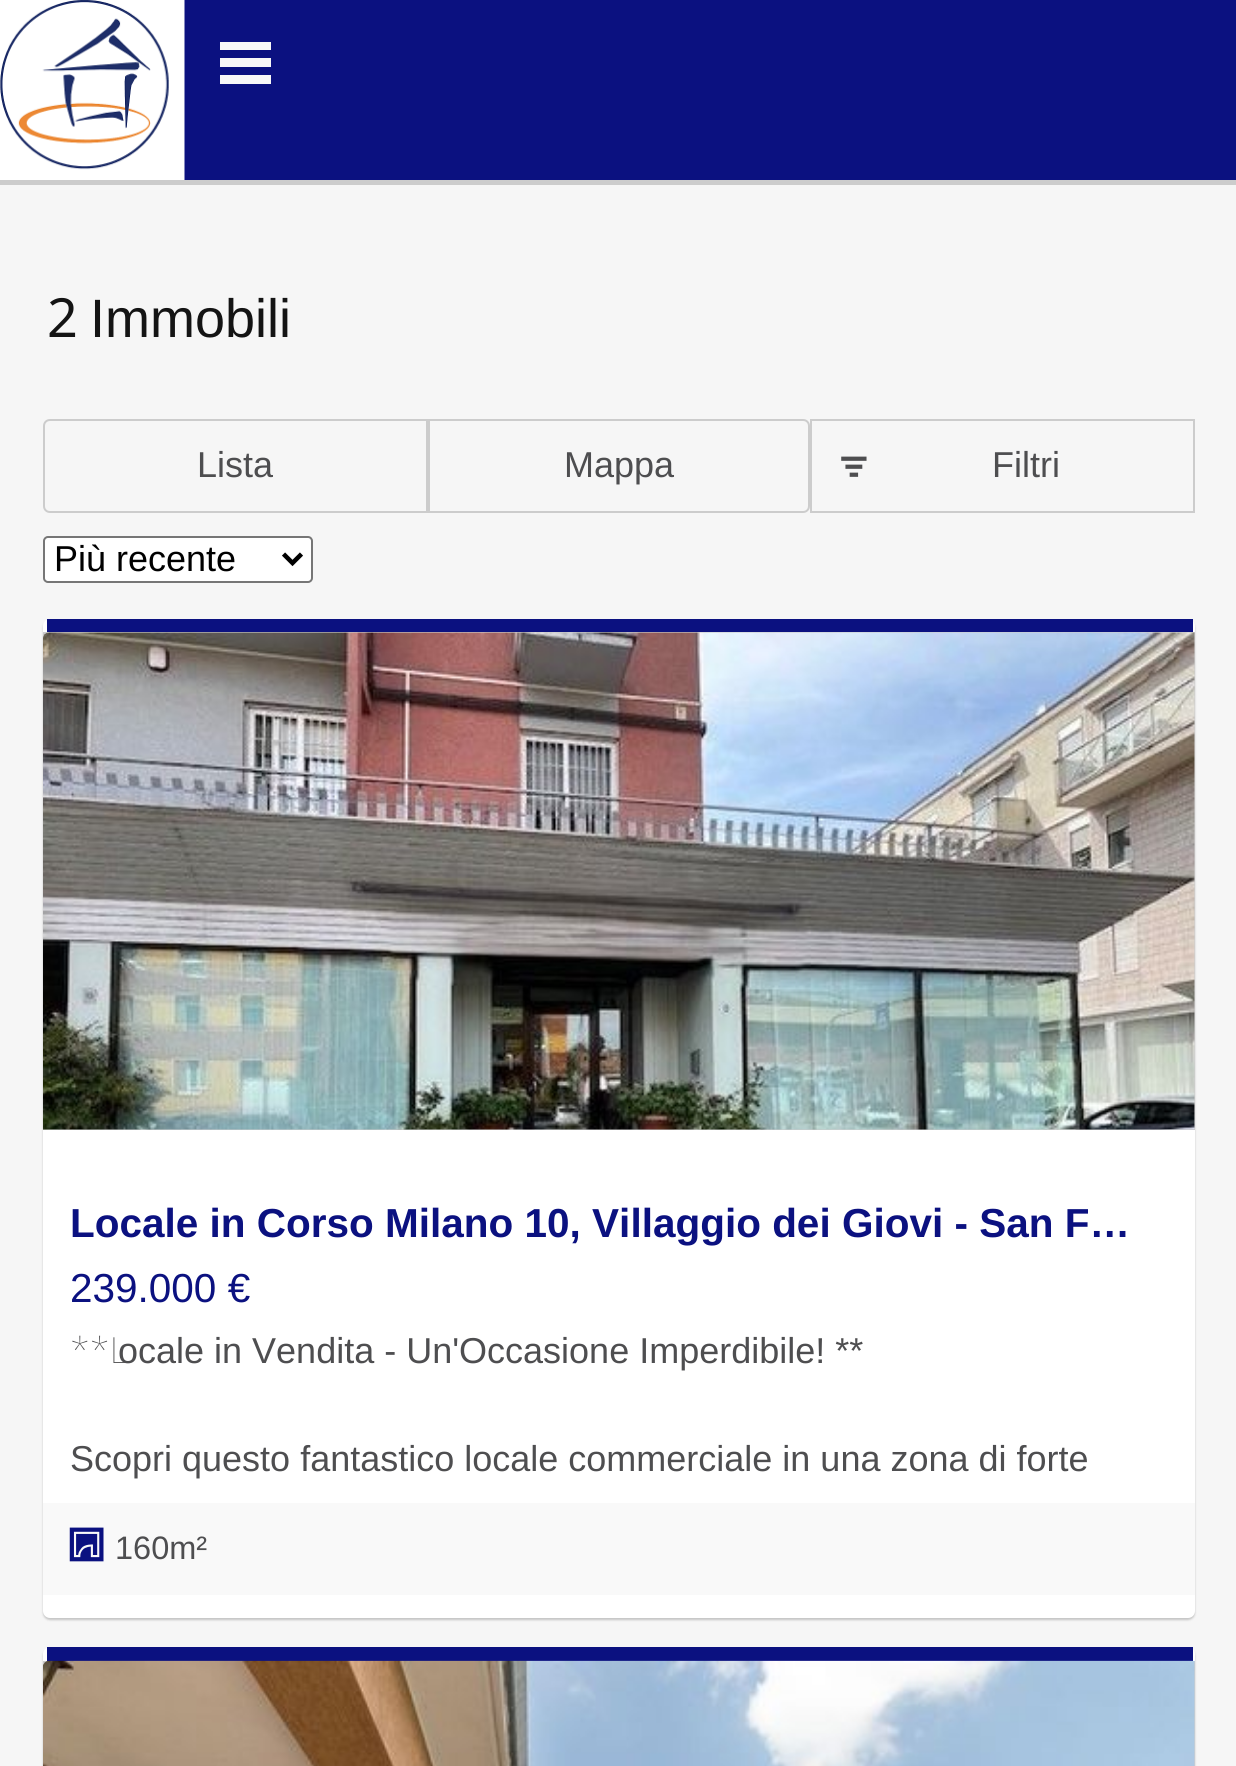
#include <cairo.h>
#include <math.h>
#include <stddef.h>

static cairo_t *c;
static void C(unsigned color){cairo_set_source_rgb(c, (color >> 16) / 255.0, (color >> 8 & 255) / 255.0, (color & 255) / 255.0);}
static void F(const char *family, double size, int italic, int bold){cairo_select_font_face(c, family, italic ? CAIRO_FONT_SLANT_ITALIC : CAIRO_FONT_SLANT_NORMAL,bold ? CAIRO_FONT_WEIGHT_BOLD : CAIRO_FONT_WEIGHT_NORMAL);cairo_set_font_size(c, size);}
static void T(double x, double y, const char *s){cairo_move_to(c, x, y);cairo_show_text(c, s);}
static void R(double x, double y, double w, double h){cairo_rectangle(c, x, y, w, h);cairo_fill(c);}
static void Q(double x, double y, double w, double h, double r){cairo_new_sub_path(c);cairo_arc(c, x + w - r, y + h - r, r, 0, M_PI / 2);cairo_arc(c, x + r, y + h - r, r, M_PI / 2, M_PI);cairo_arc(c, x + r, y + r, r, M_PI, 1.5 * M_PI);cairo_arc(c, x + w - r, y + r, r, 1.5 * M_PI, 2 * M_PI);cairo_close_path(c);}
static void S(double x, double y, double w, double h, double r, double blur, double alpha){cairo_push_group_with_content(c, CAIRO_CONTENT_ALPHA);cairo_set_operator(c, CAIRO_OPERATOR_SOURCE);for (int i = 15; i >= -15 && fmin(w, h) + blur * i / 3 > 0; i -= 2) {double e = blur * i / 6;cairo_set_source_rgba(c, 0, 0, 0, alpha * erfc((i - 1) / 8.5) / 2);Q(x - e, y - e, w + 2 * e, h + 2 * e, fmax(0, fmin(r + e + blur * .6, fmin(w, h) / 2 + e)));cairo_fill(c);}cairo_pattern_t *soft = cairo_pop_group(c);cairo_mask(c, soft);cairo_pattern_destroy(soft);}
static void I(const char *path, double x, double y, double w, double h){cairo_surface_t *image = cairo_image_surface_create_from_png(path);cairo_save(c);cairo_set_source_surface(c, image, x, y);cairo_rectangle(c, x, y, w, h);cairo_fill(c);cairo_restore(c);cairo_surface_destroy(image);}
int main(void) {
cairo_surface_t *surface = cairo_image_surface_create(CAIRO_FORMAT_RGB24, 1236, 1766);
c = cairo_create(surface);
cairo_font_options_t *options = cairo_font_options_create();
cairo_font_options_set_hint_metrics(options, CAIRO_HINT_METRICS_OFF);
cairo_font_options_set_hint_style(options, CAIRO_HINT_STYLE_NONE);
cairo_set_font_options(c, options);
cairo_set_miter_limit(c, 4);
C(0xf6f6f6);
cairo_paint(c);
C(0x0b1180);
R(184,0,1052,180);
I("1.png",0,0,185,180);
C(0xf8f8f8);
cairo_new_path(c);
cairo_move_to(c,220,42);
cairo_line_to(c,271,42);
cairo_line_to(c,271,50);
cairo_line_to(c,220,50);
cairo_close_path(c);
cairo_move_to(c,220,58);
cairo_line_to(c,271,58);
cairo_line_to(c,271,67);
cairo_line_to(c,220,67);
cairo_close_path(c);
cairo_move_to(c,220,75);
cairo_line_to(c,271,75);
cairo_line_to(c,271,84);
cairo_line_to(c,220,84);
cairo_close_path(c);
cairo_fill(c);
C(0xcccccc);
R(0,180,1236,5);
F("Noto Sans",54,0,0);
C(0x141414);
T(47,337,"2");
F("Liberation Sans",54,0,0);
T(90,337,"Immobili");
cairo_new_path(c);
cairo_move_to(c,50,420);
cairo_line_to(c,427,420);
cairo_line_to(c,427,512);
cairo_line_to(c,50,512);
cairo_curve_to(c,46.5,512,44,509.5,44,506);
cairo_line_to(c,44,426);
cairo_curve_to(c,44,422.5,46.5,420,50,420);
cairo_close_path(c);
C(0xcccccc);
cairo_stroke(c);
F("Liberation Sans",36,0,0);
C(0x4e4e50);
T(197,477,"Lista");
cairo_new_path(c);
cairo_move_to(c,429,420);
cairo_line_to(c,803,420);
cairo_curve_to(c,806.5,420,809,422.5,809,426);
cairo_line_to(c,809,506);
cairo_curve_to(c,809,509.5,806.5,512,803,512);
cairo_line_to(c,429,512);
cairo_close_path(c);
C(0xcccccc);
cairo_stroke(c);
C(0x4e4e50);
T(564,477,"Mappa");
cairo_rectangle(c,811,420,383,92);
C(0xcccccc);
cairo_stroke(c);
I("2.png",841,456,26,21);
C(0x4e4e50);
T(992,477,"Filtri");
C(0xffffff);
Q(44,537,268,45,4);
cairo_fill_preserve(c);
C(0x767676);
cairo_stroke(c);
cairo_new_path(c);
cairo_move_to(c,283.5,554);
cairo_line_to(c,292.5,563);
cairo_line_to(c,301.5,554);
C(0x000000);
cairo_set_line_width(c,4.5);
cairo_stroke(c);
T(54,571,"Più recente");
C(0x000000);
S(43,621,1152,999,7,1,.2);
C(0xffffff);
Q(43,619,1152,999,7);
cairo_fill(c);
C(0x0b1180);
R(47,619,1146,13);
C(0xcccccc);
R(43,632,1152,498);
I("3.png",43,632,1152,498);
F("Liberation Sans",40.5,0,1);
C(0x0b1180);
T(70,1237,"Locale in Corso Milano 10, Villaggio dei Giovi - San F…");
F("Liberation Sans",40.5,0,0);
T(70,1302,"239.000 €");
F("Noto Sans Thin",36,0,0);
C(0x4e4e50);
T(70,1363,"**L");
F("Liberation Sans",36,0,0);
T(118,1363,"ocale in Vendita - Un'Occasione Imperdibile! **");
T(70,1471,"Scopri questo fantastico locale commerciale in una zona di forte");
C(0xf9f9f9);
R(43,1503,1152,92);
I("4.png",69,1527,35,35);
F("Liberation Sans",32.5,0,0);
C(0x4e4e50);
T(115,1559,"160m²");
C(0x000000);
S(43,1649,1152,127,7,1,.2);
C(0xffffff);
Q(43,1647,1152,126,7);
cairo_fill(c);
C(0x0b1180);
R(47,1647,1146,14);
C(0xcccccc);
R(43,1661,1152,105);
I("5.png",43,1660,1152,106);
cairo_surface_write_to_png(surface, "o.png");
cairo_font_options_destroy(options);
cairo_destroy(c);
cairo_surface_destroy(surface);
return 0;
}
